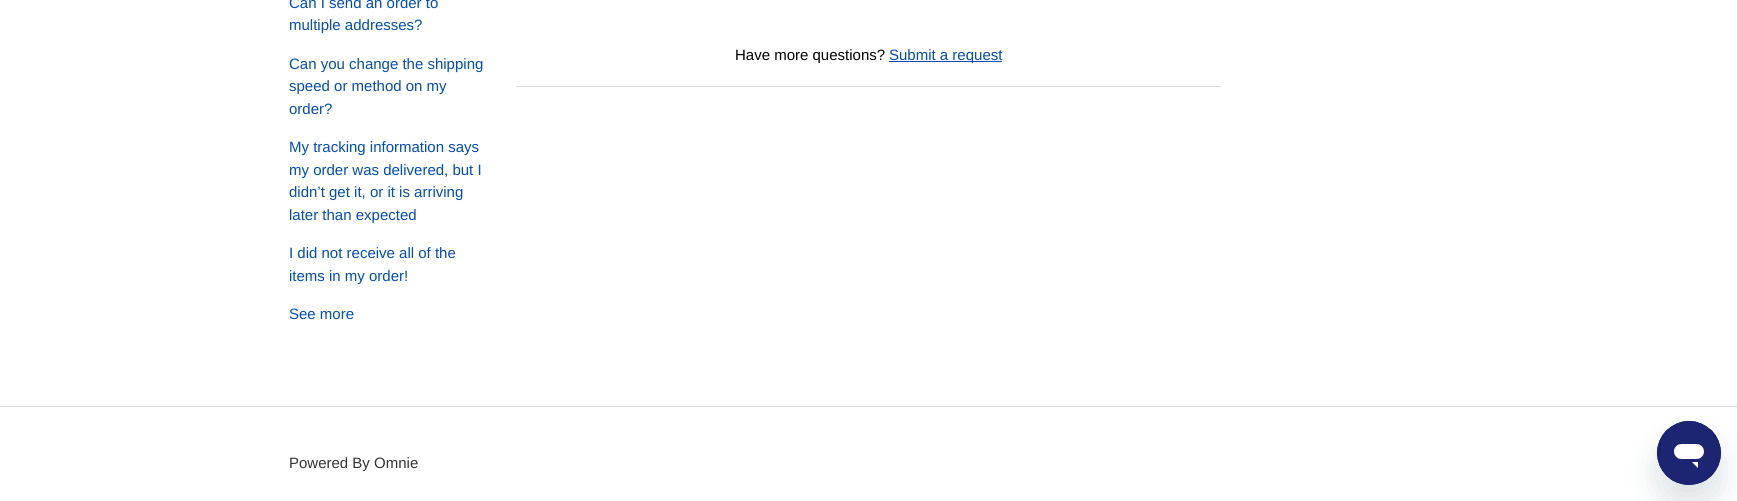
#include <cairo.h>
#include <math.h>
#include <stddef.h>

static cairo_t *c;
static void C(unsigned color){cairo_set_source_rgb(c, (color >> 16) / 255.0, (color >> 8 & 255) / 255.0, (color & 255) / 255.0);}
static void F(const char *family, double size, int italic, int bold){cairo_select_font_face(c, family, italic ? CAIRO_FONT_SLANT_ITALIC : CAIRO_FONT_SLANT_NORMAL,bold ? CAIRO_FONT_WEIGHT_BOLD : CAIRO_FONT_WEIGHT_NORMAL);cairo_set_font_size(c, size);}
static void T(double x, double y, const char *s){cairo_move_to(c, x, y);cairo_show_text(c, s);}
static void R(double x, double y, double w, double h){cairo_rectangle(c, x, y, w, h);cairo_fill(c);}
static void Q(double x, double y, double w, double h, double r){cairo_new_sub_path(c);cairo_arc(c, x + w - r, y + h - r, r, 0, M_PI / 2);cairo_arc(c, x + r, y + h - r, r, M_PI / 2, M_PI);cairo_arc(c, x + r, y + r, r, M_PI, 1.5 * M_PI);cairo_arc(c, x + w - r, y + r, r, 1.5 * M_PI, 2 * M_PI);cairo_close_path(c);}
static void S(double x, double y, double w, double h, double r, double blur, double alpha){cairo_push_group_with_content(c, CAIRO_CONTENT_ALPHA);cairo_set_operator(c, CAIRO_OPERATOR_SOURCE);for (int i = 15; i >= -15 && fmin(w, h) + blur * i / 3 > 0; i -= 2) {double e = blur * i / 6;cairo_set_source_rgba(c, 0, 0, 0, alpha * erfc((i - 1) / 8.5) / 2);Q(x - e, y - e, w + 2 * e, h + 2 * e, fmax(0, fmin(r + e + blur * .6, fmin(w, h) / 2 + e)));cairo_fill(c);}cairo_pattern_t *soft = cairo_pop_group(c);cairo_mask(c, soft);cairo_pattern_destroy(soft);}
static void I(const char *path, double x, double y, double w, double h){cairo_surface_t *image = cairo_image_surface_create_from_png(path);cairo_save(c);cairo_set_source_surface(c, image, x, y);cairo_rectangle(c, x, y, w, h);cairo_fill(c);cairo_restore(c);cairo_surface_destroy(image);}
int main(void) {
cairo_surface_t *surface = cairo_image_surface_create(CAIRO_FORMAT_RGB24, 1737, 501);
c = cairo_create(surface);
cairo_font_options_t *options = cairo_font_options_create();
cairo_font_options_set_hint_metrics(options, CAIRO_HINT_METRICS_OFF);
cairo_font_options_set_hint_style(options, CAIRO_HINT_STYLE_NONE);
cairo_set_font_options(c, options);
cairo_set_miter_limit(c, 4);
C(0xffffff);
cairo_paint(c);
F("Liberation Sans",15,0,0);
C(0x014cb7);
T(289,8,"Can I send an order to");
T(289,30,"multiple addresses?");
T(289,69,"Can you change the shipping");
T(289,91,"speed or method on my");
T(289,114,"order?");
T(289,152,"My tracking information says");
T(289,175,"my order was delivered, but I");
T(289,197,"didn’t get it, or it is arriving");
T(289,220,"later than expected");
T(289,258,"I did not receive all of the");
T(289,281,"items in my order!");
T(289,319,"See more");
C(0x000000);
T(735,60,"Have more questions?");
C(0x014cb7);
R(889,61,113,1);
T(889,60,"Submit a request");
C(0xdddddd);
R(516,86,705,1);
R(0,406,1737,1);
C(0x333333);
T(289,468,"Powered By Omnie");
C(0x17494d);
S(1657,441,64,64,32,15,.15);
I("1.png",1657,421,64,64);
cairo_surface_write_to_png(surface, "o.png");
cairo_font_options_destroy(options);
cairo_destroy(c);
cairo_surface_destroy(surface);
return 0;
}
